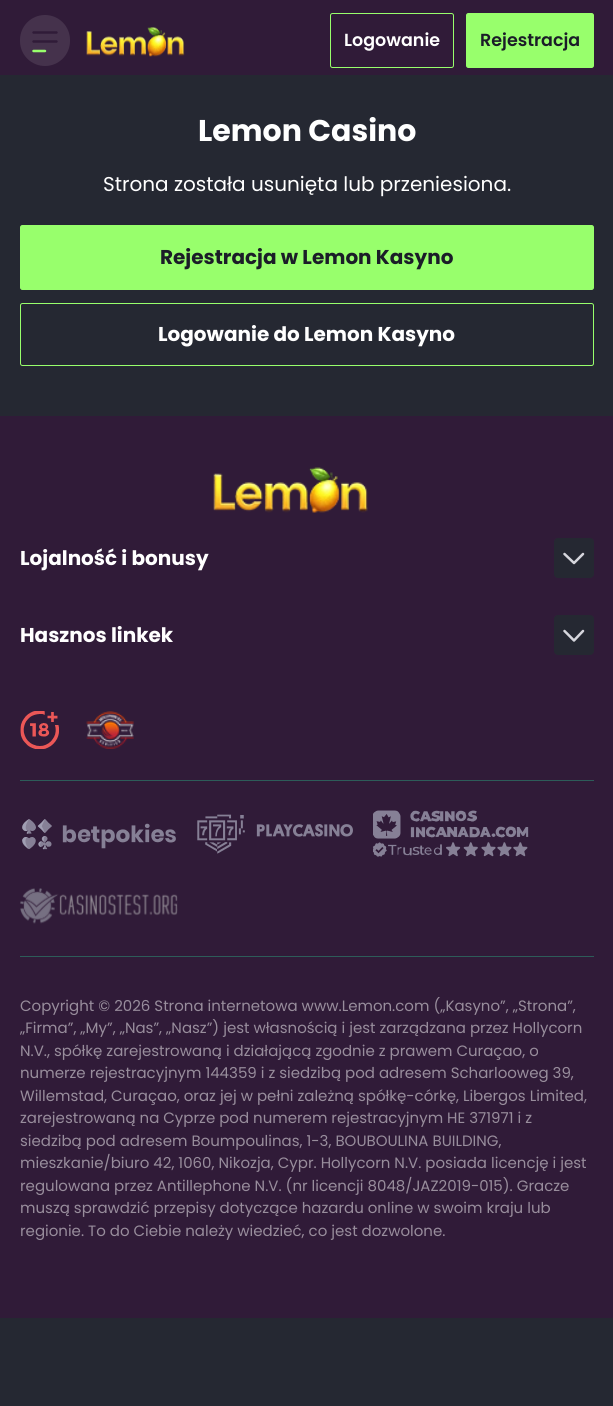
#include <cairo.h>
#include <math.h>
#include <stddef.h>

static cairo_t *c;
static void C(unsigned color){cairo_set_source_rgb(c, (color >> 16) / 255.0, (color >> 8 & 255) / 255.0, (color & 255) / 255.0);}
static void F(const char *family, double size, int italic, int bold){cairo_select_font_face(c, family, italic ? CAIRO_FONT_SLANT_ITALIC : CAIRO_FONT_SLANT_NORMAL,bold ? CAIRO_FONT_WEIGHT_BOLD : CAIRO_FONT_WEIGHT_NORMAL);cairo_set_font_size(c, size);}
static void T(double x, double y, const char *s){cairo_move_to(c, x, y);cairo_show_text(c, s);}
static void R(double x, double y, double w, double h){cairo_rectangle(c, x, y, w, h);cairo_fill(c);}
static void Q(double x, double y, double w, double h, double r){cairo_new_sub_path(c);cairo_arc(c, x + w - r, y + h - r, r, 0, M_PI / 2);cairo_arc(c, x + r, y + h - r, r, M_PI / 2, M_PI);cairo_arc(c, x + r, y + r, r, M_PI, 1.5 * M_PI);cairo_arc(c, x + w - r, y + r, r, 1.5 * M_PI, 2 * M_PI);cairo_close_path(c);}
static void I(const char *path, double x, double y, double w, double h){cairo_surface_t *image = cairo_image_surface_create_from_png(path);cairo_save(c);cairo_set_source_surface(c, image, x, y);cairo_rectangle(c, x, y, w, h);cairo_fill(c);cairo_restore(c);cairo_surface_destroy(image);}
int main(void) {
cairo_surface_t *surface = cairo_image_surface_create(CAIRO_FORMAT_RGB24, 613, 1406);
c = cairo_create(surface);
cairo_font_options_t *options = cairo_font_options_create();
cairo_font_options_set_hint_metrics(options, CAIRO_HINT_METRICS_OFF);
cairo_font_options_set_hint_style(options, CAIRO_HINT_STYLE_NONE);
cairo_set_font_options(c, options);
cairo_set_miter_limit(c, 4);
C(0x252832);
cairo_paint(c);
C(0x301b38);
R(0,0,613,75);
C(0x45324c);
Q(20,15,50,51,25);
cairo_fill(c);
cairo_new_path(c);
cairo_move_to(c,33.5,41.5);
cairo_line_to(c,56.5,41.5);
cairo_move_to(c,33.5,32.5);
cairo_line_to(c,56.5,32.5);
C(0x301b38);
cairo_set_line_width(c,2.5);
cairo_set_line_cap(c,CAIRO_LINE_CAP_ROUND);
cairo_set_line_join(c,CAIRO_LINE_JOIN_ROUND);
cairo_stroke(c);
cairo_new_path(c);
cairo_move_to(c,33.5,51);
cairo_line_to(c,45,51);
C(0x98ff6c);
cairo_stroke(c);
I("1.png",86,27,99,30);
Q(330.5,13.5,123,54,2);
cairo_set_line_width(c,1);
cairo_set_line_cap(c,CAIRO_LINE_CAP_BUTT);
cairo_set_line_join(c,CAIRO_LINE_JOIN_MITER);
cairo_stroke(c);
F("Poppins SemiBold",17.5,0,0);
C(0xffffff);
T(344,46,"Logowanie");
C(0x98ff6c);
Q(466.5,13.5,127,54,2);
cairo_fill_preserve(c);
cairo_stroke(c);
C(0x1b1d28);
T(480,46,"Rejestracja");
F("Poppins",30,0,1);
C(0xffffff);
T(198,141,"Lemon Casino");
F("Poppins",20,0,0);
T(103,191,"Strona została usunięta lub przeniesiona.");
C(0x98ff6c);
Q(20.5,225.5,573,64,2);
cairo_fill_preserve(c);
cairo_stroke(c);
F("Poppins",20,0,1);
C(0x1b1d28);
T(160,264,"Rejestracja w Lemon Kasyno");
Q(20.5,303.5,573,62,2);
C(0x98ff6c);
cairo_stroke(c);
C(0xffffff);
T(158,341,"Logowanie do Lemon Kasyno");
C(0x301b38);
R(0,416,613,902);
I("2.png",213,467,155,46);
C(0xffffff);
T(20,565,"Lojalność i bonusy");
C(0x252832);
Q(554,538,40,40,4);
cairo_fill(c);
cairo_new_path(c);
cairo_move_to(c,564.5,554);
cairo_line_to(c,574,563);
cairo_line_to(c,583,554);
C(0xd6d6dd);
cairo_set_line_width(c,2.5);
cairo_set_line_cap(c,CAIRO_LINE_CAP_ROUND);
cairo_set_line_join(c,CAIRO_LINE_JOIN_ROUND);
cairo_stroke(c);
C(0xffffff);
T(20,642,"Hasznos linkek");
C(0x252832);
Q(554,615,40,40,4);
cairo_fill(c);
cairo_new_path(c);
cairo_move_to(c,564.5,631);
cairo_line_to(c,574,640.5);
cairo_line_to(c,583,631);
C(0xd6d6dd);
cairo_stroke(c);
C(0x2d5c59);
R(20,780,574,1);
I("3.png",20,711,39,38);
I("4.png",86,711,48,38);
R(20,956,574,1);
I("5.png",22,819,154,31);
I("6.png",197,814,156,40);
I("7.png",373,810,156,47);
I("8.png",20,888,158,36);
F("Poppins",15,0,0);
C(0x988d9c);
T(20,1011,"Copyright © 2026 Strona internetowa www.Lemon.com („Kasyno”, „Strona”,");
T(20,1033,"„Firma”, „My”, „Nas”, „Nasz”) jest własnością i jest zarządzana przez Hollycorn");
T(20,1056,"N.V., spółkę zarejestrowaną i działającą zgodnie z prawem Curaçao, o");
T(20,1078,"numerze rejestracyjnym 144359 i z siedzibą pod adresem Scharlooweg 39,");
T(20,1101,"Willemstad, Curaçao, oraz jej w pełni zależną spółkę-córkę, Libergos Limited,");
T(20,1123,"zarejestrowaną na Cyprze pod numerem rejestracyjnym HE 371971 i z");
T(20,1146,"siedzibą pod adresem Boumpoulinas, 1-3, BOUBOULINA BUILDING,");
T(20,1168,"mieszkanie/biuro 42, 1060, Nikozja, Cypr. Hollycorn N.V. posiada licencję i jest");
T(20,1191,"regulowana przez Antillephone N.V. (nr licencji 8048/JAZ2019-015). Gracze");
T(20,1213,"muszą sprawdzić przepisy dotyczące hazardu online w swoim kraju lub");
T(20,1236,"regionie. To do Ciebie należy wiedzieć, co jest dozwolone.");
cairo_surface_write_to_png(surface, "o.png");
cairo_font_options_destroy(options);
cairo_destroy(c);
cairo_surface_destroy(surface);
return 0;
}
